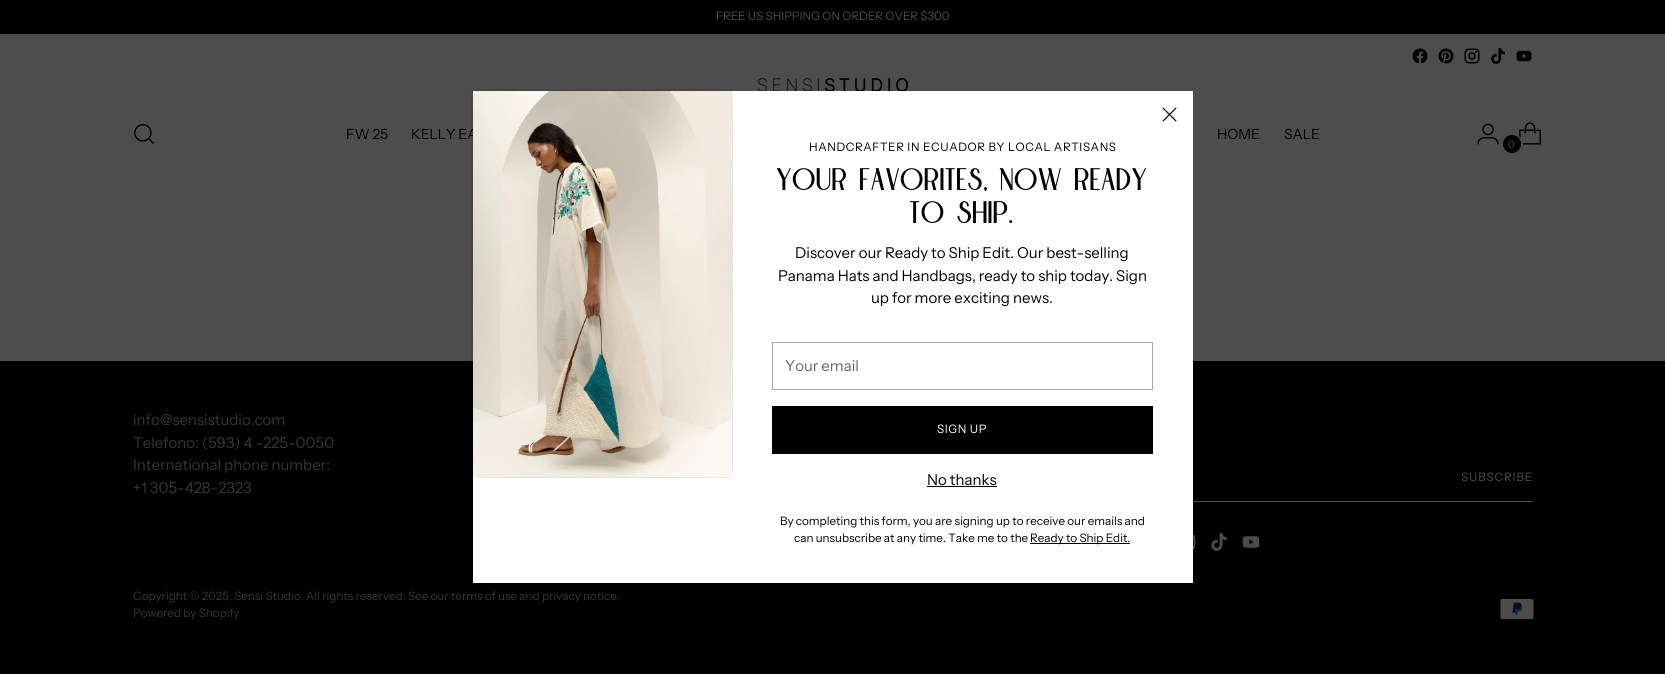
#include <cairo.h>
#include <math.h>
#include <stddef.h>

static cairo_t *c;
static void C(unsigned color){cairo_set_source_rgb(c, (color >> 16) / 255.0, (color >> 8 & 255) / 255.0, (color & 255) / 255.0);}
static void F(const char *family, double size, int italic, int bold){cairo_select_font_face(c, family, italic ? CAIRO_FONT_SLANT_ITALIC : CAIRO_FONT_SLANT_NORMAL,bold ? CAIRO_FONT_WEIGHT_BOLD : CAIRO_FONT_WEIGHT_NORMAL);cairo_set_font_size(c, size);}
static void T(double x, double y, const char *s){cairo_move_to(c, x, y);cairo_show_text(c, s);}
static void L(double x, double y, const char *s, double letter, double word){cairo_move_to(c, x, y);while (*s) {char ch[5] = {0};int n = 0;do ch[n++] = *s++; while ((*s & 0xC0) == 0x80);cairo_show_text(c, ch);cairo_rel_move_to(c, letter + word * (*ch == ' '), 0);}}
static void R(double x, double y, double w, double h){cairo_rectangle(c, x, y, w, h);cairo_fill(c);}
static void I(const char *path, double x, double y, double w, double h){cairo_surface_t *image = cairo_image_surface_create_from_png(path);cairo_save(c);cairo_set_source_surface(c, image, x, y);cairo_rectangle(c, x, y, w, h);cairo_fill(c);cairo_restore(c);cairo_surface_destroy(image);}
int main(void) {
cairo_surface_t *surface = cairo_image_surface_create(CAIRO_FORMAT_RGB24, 1665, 674);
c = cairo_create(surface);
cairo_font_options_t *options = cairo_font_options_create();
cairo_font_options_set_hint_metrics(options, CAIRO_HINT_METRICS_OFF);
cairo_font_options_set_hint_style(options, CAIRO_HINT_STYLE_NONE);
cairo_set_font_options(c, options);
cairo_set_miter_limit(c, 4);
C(0x4d4d4d);
cairo_paint(c);
C(0x000000);
R(0,0,1665,34);
F("Instrument Sans",11.65,0,0);
C(0x4d4d4d);
T(716,20,"FREE US SHIPPING ON ORDER OVER $300");
I("1.png",1412,48,16,16);
I("2.png",1438,48,16,16);
I("3.png",1464,48,16,16);
I("4.png",1491,48,14,16);
I("5.png",1516,50,16,12);
I("6.png",758,78,150,13);
I("7.png",134,124,21,21);
F("Instrument Sans",14,0,0);
C(0x000000);
T(346,139,"FW 25");
T(411,139,"KELLY EA");
T(1217,139,"HOME");
T(1284,139,"SALE");
I("8.png",1477,123,22,22);
I("9.png",1519,122,22,23);
cairo_arc(c,1512.5,144.5,9.5,0,2 * M_PI);
C(0x4d4d4d);
cairo_stroke(c);
C(0x000000);
cairo_arc(c,1512,144,9,0,2 * M_PI);
cairo_fill(c);
F("Instrument Sans",10,0,0);
C(0x4d4d4d);
T(1508,148,"0");
C(0x000000);
R(0,361,1665,313);
C(0xffffff);
R(473,91,720,492);
I("10.png",471,89,262,389);
I("11.png",1162,107,15,15);
F("Instrument Sans",11.65,0,0);
C(0x000000);
L(809,151,"HANDCRAFTER IN ECUADOR BY LOCAL ARTISANS",.6,0);
F("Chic",30,0,1);
T(777,190,"YOUR FAVORITES, NOW READY");
T(910,223,"TO SHIP.");
F("Instrument Sans",15,0,0);
T(795,258,"Discover our Ready to Ship Edit. Our best-selling");
T(778,281,"Panama Hats and Handbags, ready to ship today. Sign");
T(871,303,"up for more exciting news.");
cairo_rectangle(c,772.5,342.5,380,47);
C(0xaaaaaa);
cairo_set_line_width(c,1);
cairo_stroke(c);
C(0x666666);
T(785,371,"Your email");
cairo_save(c);
cairo_rectangle(c,772,406,381,48);
cairo_clip(c);
C(0x000000);
cairo_new_path(c);
cairo_move_to(c,701,406);
cairo_line_to(c,1196,406);
cairo_line_to(c,1223,454);
cairo_line_to(c,728,454);
cairo_close_path(c);
cairo_fill(c);
cairo_restore(c);
F("Instrument Sans",11.65,0,0);
C(0xffffff);
L(937,433,"SIGN UP",.6,0);
F("Instrument Sans",15,0,0);
C(0x000000);
T(927,485,"No thanks");
R(927,486,70,1);
F("Instrument Sans",11.65,0,0);
T(780,525,"By completing this form, you are signing up to receive our emails and");
T(794,542,"can unsubscribe at any time. Take me to the");
R(1030,543,100,1);
T(1030,542,"Ready to Ship Edit.");
F("Instrument Sans",15,0,0);
C(0x363636);
T(133,425,"info@sensistudio.com");
T(133,448,"Telefono: (593) 4 -225-0050");
T(133,470,"International phone number:");
T(133,493,"+1 305-428-2323");
F("Instrument Sans",11.65,0,0);
C(0x4d4d4d);
L(1461,481,"SUBSCRIBE",.9,0);
R(1193,501,340,1);
I("12.png",1193,534,3,16);
I("13.png",1211,533,16,18);
I("14.png",1242,536,18,12);
C(0x363636);
T(133,600,"Copyright © 2025, Sensi Studio. All rights reserved. See our terms of use and privacy notice.");
T(133,617,"Powered by Shopify");
I("15.png",1500,598,34,22);
cairo_surface_write_to_png(surface, "o.png");
cairo_font_options_destroy(options);
cairo_destroy(c);
cairo_surface_destroy(surface);
return 0;
}
